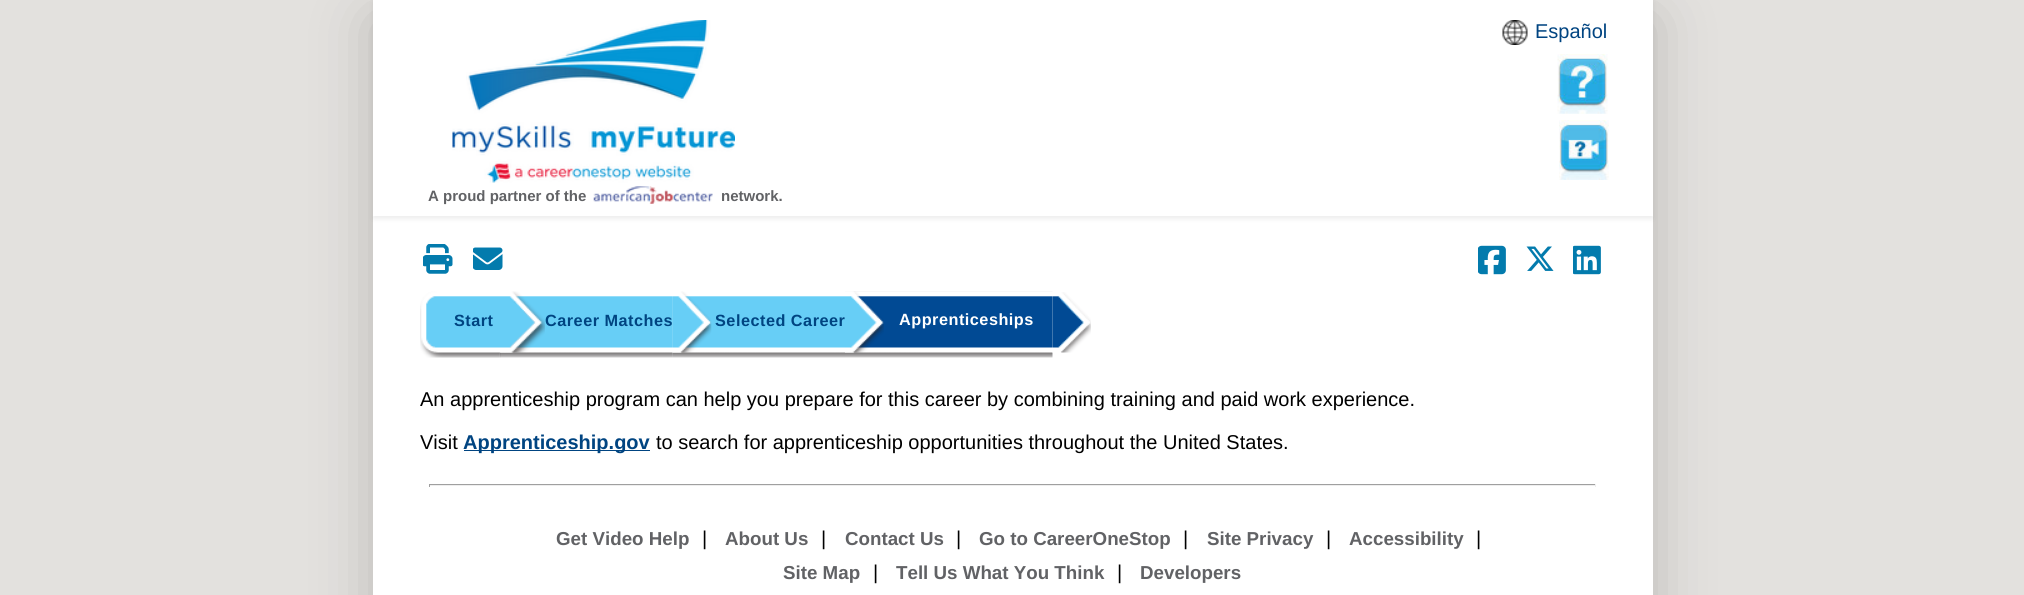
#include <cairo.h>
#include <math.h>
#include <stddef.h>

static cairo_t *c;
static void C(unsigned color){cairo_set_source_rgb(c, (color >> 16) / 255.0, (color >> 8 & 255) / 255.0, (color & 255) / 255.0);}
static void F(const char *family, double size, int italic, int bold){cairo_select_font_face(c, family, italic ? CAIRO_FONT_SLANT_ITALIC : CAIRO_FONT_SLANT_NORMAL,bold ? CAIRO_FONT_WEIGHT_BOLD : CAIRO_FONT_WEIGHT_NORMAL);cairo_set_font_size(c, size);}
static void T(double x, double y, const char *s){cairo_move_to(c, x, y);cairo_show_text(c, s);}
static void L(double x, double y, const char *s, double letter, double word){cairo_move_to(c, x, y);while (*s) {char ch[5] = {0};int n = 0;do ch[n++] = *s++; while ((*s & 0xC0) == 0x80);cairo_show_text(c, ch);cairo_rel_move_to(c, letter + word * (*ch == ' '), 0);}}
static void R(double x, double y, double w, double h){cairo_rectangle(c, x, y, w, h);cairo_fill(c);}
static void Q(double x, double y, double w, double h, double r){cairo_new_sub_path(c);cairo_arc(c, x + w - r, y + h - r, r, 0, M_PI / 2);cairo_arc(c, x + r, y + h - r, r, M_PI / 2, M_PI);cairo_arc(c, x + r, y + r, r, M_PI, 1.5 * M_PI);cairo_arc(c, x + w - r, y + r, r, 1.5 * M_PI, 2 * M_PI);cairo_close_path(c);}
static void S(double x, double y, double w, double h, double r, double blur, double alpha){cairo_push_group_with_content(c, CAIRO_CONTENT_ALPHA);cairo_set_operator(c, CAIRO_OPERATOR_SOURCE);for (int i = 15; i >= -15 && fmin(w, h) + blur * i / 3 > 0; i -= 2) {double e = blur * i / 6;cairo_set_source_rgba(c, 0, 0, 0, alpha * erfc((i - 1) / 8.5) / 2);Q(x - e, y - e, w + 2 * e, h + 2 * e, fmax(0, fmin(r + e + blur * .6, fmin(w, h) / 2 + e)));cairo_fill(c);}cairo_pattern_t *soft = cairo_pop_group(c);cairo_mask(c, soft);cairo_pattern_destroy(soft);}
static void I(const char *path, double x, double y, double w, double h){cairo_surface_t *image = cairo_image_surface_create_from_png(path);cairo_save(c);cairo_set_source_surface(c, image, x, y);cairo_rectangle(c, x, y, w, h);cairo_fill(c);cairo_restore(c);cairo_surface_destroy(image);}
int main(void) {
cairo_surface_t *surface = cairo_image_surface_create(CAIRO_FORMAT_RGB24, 2024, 595);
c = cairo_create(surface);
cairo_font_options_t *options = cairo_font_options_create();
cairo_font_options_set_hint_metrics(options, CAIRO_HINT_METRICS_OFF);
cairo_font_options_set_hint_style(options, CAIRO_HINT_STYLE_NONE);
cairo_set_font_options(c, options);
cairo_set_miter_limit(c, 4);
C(0xe3e1de);
cairo_paint(c);
C(0x000000);
S(373,20,1280,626,0,30,.18);
C(0xffffff);
R(373,0,1280,595);
cairo_save(c);
cairo_set_fill_rule(c,CAIRO_FILL_RULE_EVEN_ODD);
cairo_new_path(c);
cairo_move_to(c,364,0);
cairo_line_to(c,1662,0);
cairo_line_to(c,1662,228);
cairo_line_to(c,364,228);
cairo_close_path(c);
cairo_move_to(c,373,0);
cairo_line_to(c,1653,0);
cairo_line_to(c,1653,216);
cairo_line_to(c,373,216);
cairo_close_path(c);
cairo_clip(c);
C(0x000000);
S(373,3,1280,216,0,2.5,.07);
cairo_restore(c);
I("1.png",1502,20,26,25);
F("Liberation Sans",20,0,0);
C(0x004481);
T(1535,38,"Español");
I("2.png",1557,54,51,60);
I("3.png",1559,120,50,60);
I("4.png",452,20,283,163);
F("Liberation Sans",15,0,1);
C(0x616265);
T(428,201,"A proud partner of the");
I("5.png",593,186,120,18);
T(721,201,"network.");
I("6.png",423,244,30,30);
I("7.png",473,247,30,23);
I("8.png",1478,245,28,30);
I("9.png",1526,246,28,25);
I("10.png",1573,245,28,30);
I("12.png",500,296,173,62);
I("11.png",420,291,125,67);
F("Liberation Sans",16.25,0,1);
C(0x004481);
L(454,326,"Start",.5,0);
L(545,326,"Career Matches",.5,0);
I("14.png",672,296,173,62);
I("13.png",672,291,40,62);
L(715,326,"Selected Career",.5,0);
I("16.png",845,291,208,67);
I("15.png",845,291,39,62);
C(0xffffff);
L(899,325,"Apprenticeships",.5,0);
I("17.png",1052,292,39,61);
F("Liberation Sans",20,0,0);
C(0x000000);
T(420,406,"An apprenticeship program can help you prepare for this career by combining training and paid work experience.");
T(420,449,"Visit");
C(0x004481);
R(464,450,186,1);
F("Liberation Sans",20,0,1);
T(463,449,"Apprenticeship.gov");
F("Liberation Sans",20,0,0);
C(0x000000);
T(656,449,"to search for apprenticeship opportunities throughout the United States.");
C(0x9f9f9f);
R(429,484,1167,1);
C(0xeeeeee);
R(1595,484,1,3);
R(429,485,1167,1);
C(0x9f9f9f);
R(429,484,1,3);
F("Liberation Sans",18.75,0,1);
C(0x616265);
T(556,545,"Get Video Help");
F("Liberation Sans",20,0,0);
C(0x000000);
T(702,545,"|");
F("Liberation Sans",18.75,0,1);
C(0x616265);
T(725,545,"About Us");
F("Liberation Sans",20,0,0);
C(0x000000);
T(821,545,"|");
F("Liberation Sans",18.75,0,1);
C(0x616265);
T(845,545,"Contact Us");
F("Liberation Sans",20,0,0);
C(0x000000);
T(956,545,"|");
F("Liberation Sans",18.75,0,1);
C(0x616265);
T(979,545,"Go to CareerOneStop");
F("Liberation Sans",20,0,0);
C(0x000000);
T(1183,545,"|");
F("Liberation Sans",18.75,0,1);
C(0x616265);
T(1207,545,"Site Privacy");
F("Liberation Sans",20,0,0);
C(0x000000);
T(1326,545,"|");
F("Liberation Sans",18.75,0,1);
C(0x616265);
T(1349,545,"Accessibility");
F("Liberation Sans",20,0,0);
C(0x000000);
T(1476,545,"|");
F("Liberation Sans",18.75,0,1);
C(0x616265);
T(783,579,"Site Map");
F("Liberation Sans",20,0,0);
C(0x000000);
T(873,579,"|");
F("Liberation Sans",18.75,0,1);
C(0x616265);
T(896,579,"Tell Us What You Think");
F("Liberation Sans",20,0,0);
C(0x000000);
T(1117,579,"|");
F("Liberation Sans",18.75,0,1);
C(0x616265);
T(1140,579,"Developers");
cairo_surface_write_to_png(surface, "o.png");
cairo_font_options_destroy(options);
cairo_destroy(c);
cairo_surface_destroy(surface);
return 0;
}
